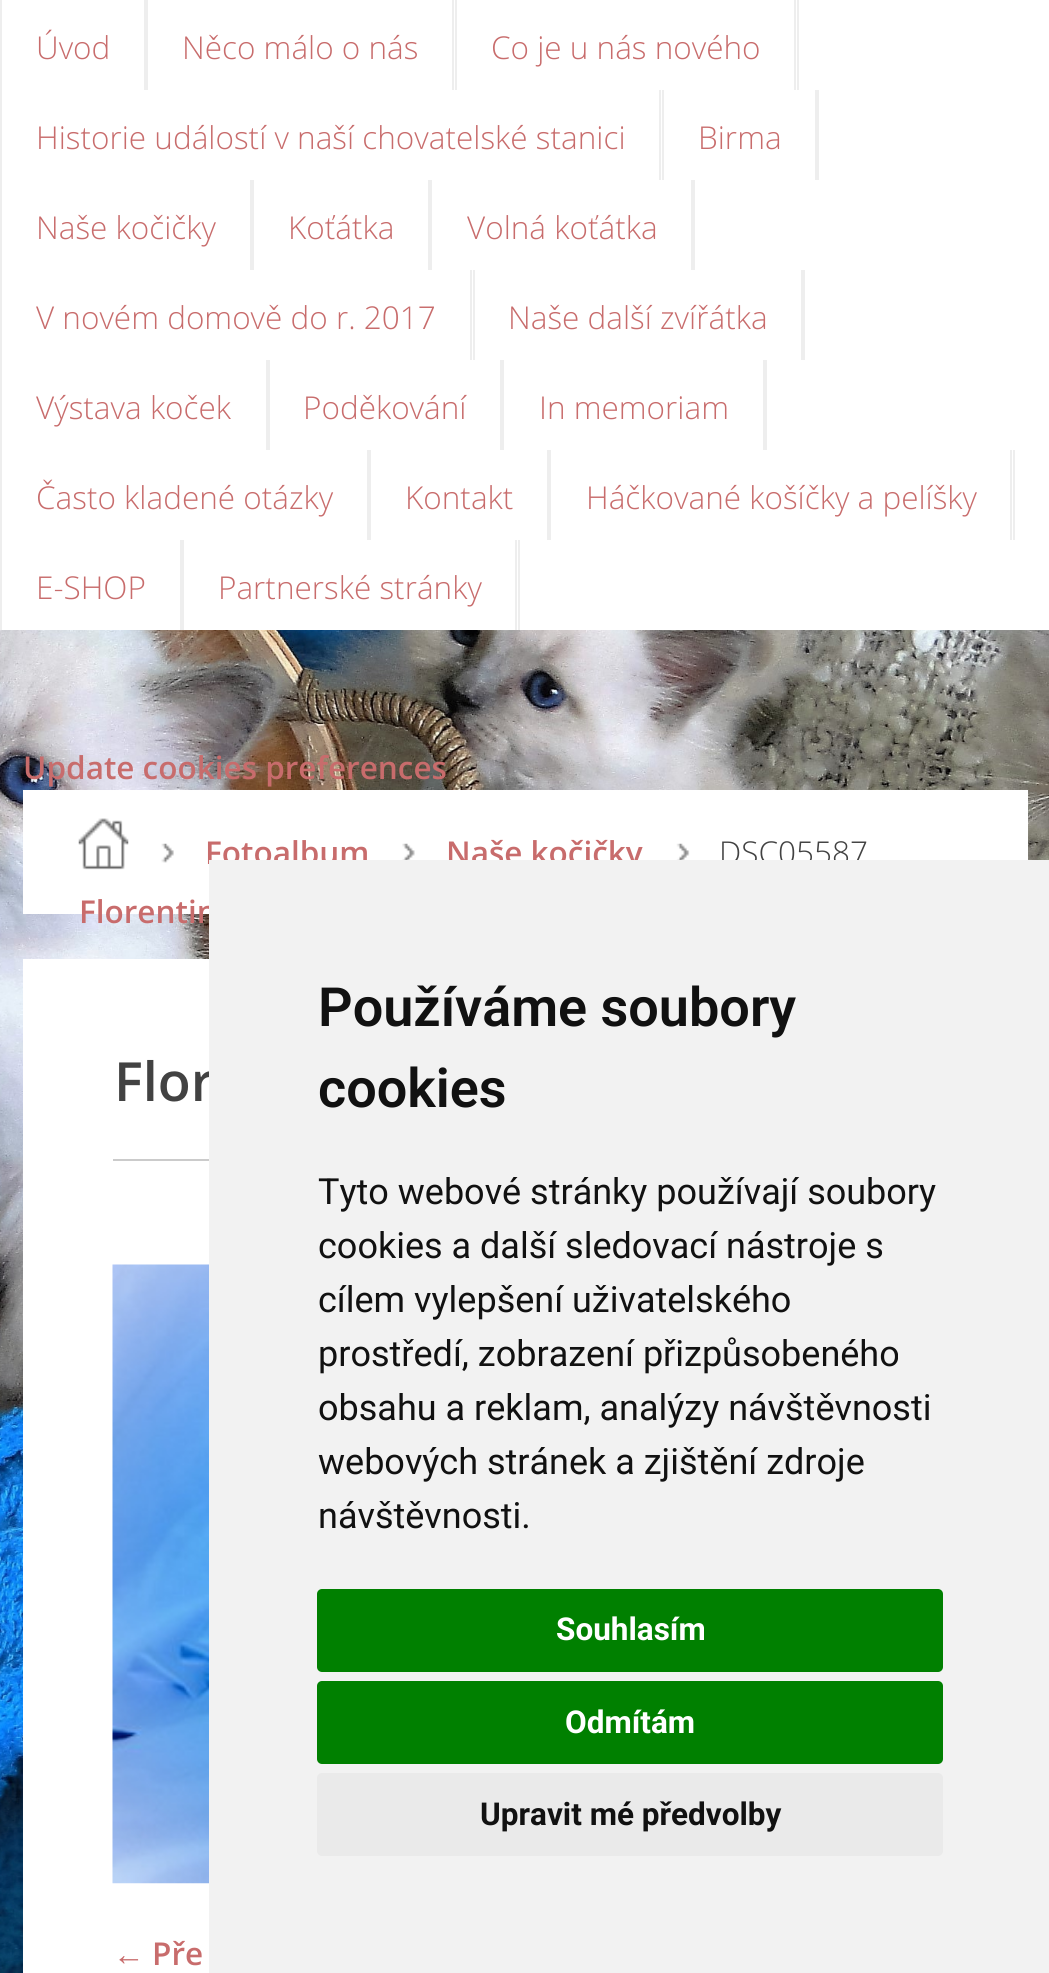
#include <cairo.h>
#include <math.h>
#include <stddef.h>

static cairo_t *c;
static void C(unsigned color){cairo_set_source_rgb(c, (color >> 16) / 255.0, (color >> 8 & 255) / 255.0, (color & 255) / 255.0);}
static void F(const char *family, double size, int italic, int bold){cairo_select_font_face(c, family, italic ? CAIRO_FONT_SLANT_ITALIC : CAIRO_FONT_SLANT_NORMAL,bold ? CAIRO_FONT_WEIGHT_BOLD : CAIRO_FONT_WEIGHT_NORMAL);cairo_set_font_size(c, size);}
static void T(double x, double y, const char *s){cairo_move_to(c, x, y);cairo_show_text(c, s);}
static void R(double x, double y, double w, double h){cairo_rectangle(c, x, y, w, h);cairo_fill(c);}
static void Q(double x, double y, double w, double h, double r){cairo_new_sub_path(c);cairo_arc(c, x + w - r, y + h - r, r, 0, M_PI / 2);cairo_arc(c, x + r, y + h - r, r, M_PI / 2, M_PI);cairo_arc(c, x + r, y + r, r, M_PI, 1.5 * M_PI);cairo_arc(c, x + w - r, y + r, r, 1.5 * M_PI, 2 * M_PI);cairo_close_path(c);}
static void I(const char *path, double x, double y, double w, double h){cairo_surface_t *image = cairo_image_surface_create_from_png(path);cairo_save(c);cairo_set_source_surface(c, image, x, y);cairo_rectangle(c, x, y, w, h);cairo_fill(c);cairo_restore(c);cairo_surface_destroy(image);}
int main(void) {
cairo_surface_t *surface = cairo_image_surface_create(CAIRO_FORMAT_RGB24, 1049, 1973);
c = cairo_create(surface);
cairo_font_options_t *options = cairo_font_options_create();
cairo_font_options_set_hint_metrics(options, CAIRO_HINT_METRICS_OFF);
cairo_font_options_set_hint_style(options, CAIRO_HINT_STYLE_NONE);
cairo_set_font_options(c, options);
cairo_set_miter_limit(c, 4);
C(0xffffff);
cairo_paint(c);
C(0xeeeeee);
R(144,0,4,90);
R(0,0,2,630);
F("Open Sans Light",31.5,0,0);
C(0xc86c6c);
T(36,59,"Úvod");
C(0xeeeeee);
R(455,0,2,90);
R(452,0,2,90);
C(0xc86c6c);
T(182,59,"Něco málo o nás");
C(0xeeeeee);
R(797,0,2,90);
R(794,0,2,90);
C(0xc86c6c);
T(491,59,"Co je u nás nového");
C(0xeeeeee);
R(662,90,2,90);
R(659,90,2,90);
C(0xc86c6c);
T(36,149,"Historie událostí v naší chovatelské stanici");
C(0xeeeeee);
R(815,90,4,90);
C(0xc86c6c);
T(698,149,"Birma");
C(0xeeeeee);
R(250,180,4,90);
C(0xc86c6c);
T(36,239,"Naše kočičky");
C(0xeeeeee);
R(428,180,4,90);
C(0xc86c6c);
T(288,239,"Koťátka");
C(0xeeeeee);
R(691,180,4,90);
C(0xc86c6c);
T(467,239,"Volná koťátka");
C(0xeeeeee);
R(473,270,2,90);
R(470,270,2,90);
C(0xc86c6c);
T(36,329,"V novém domově do r. 2017");
C(0xeeeeee);
R(801,270,4,90);
C(0xc86c6c);
T(508,329,"Naše další zvířátka");
C(0xeeeeee);
R(266,360,4,90);
C(0xc86c6c);
T(36,419,"Výstava koček");
C(0xeeeeee);
R(500,360,4,90);
C(0xc86c6c);
T(303,419,"Poděkování");
C(0xeeeeee);
R(763,360,4,90);
C(0xc86c6c);
T(539,419,"In memoriam");
C(0xeeeeee);
R(367,450,4,90);
C(0xc86c6c);
T(36,509,"Často kladené otázky");
C(0xeeeeee);
R(547,450,4,90);
C(0xc86c6c);
T(405,509,"Kontakt");
C(0xeeeeee);
R(1013,450,2,90);
R(1010,450,2,90);
C(0xc86c6c);
T(586,509,"Háčkované košíčky a pelíšky");
C(0xeeeeee);
R(180,540,4,90);
C(0xc86c6c);
T(36,599,"E-SHOP");
C(0xeeeeee);
R(518,540,2,90);
R(515,540,2,90);
C(0xc86c6c);
T(218,599,"Partnerské stránky");
I("6.png",0,630,1049,1343);
F("Open Sans SemiBold",31.5,0,0);
T(23,779,"Update cookies preferences");
C(0xffffff);
R(23,790,1005,124);
I("1.png",78,818,51,52);
I("2.png",161,843,13,20);
C(0xc86c6c);
T(205,864,"Fotoalbum");
I("3.png",402,843,13,17);
T(446,864,"Naše kočičky");
I("4.png",676,843,14,17);
F("Open Sans Light",31.5,0,0);
C(0x424242);
T(719,864,"DSC05587");
F("Open Sans SemiBold",31.5,0,0);
C(0xc86c6c);
T(79,923,"Florentin");
C(0xffffff);
R(23,959,186,1014);
C(0xcbcbcb);
R(113,1159,96,2);
F("Open Sans SemiBold",54,0,0);
C(0x424242);
T(114,1101,"Flor");
I("5.png",112,1264,97,620);
F("Liberation Serif",31.5,0,0);
C(0xc86c6c);
T(113,1965,"←");
F("Open Sans SemiBold",31.5,0,0);
T(152,1965,"Pře");
C(0xf2f2f2);
R(209,860,840,1113);
F("Roboto SemiBold",54,0,0);
C(0x111111);
T(318,1026,"Používáme soubory");
T(318,1107,"cookies");
F("Roboto",36,0,0);
T(318,1204,"Tyto webové stránky používají soubory");
T(318,1258,"cookies a další sledovací nástroje s");
T(318,1312,"cílem vylepšení uživatelského");
T(318,1366,"prostředí, zobrazení přizpůsobeného");
T(318,1420,"obsahu a reklam, analýzy návštěvnosti");
T(318,1474,"webových stránek a zjištění zdroje");
T(318,1528,"návštěvnosti.");
C(0x008000);
Q(317,1589,626,83,5);
cairo_fill(c);
F("Roboto",31.5,0,1);
C(0xffffff);
T(556,1640,"Souhlasím");
C(0x008000);
Q(317,1681,626,83,5);
cairo_fill(c);
C(0xffffff);
T(565,1733,"Odmítám");
C(0xeaeaea);
Q(317,1773,626,83,5);
cairo_fill(c);
C(0x111111);
T(480,1825,"Upravit mé předvolby");
cairo_surface_write_to_png(surface, "o.png");
cairo_font_options_destroy(options);
cairo_destroy(c);
cairo_surface_destroy(surface);
return 0;
}
